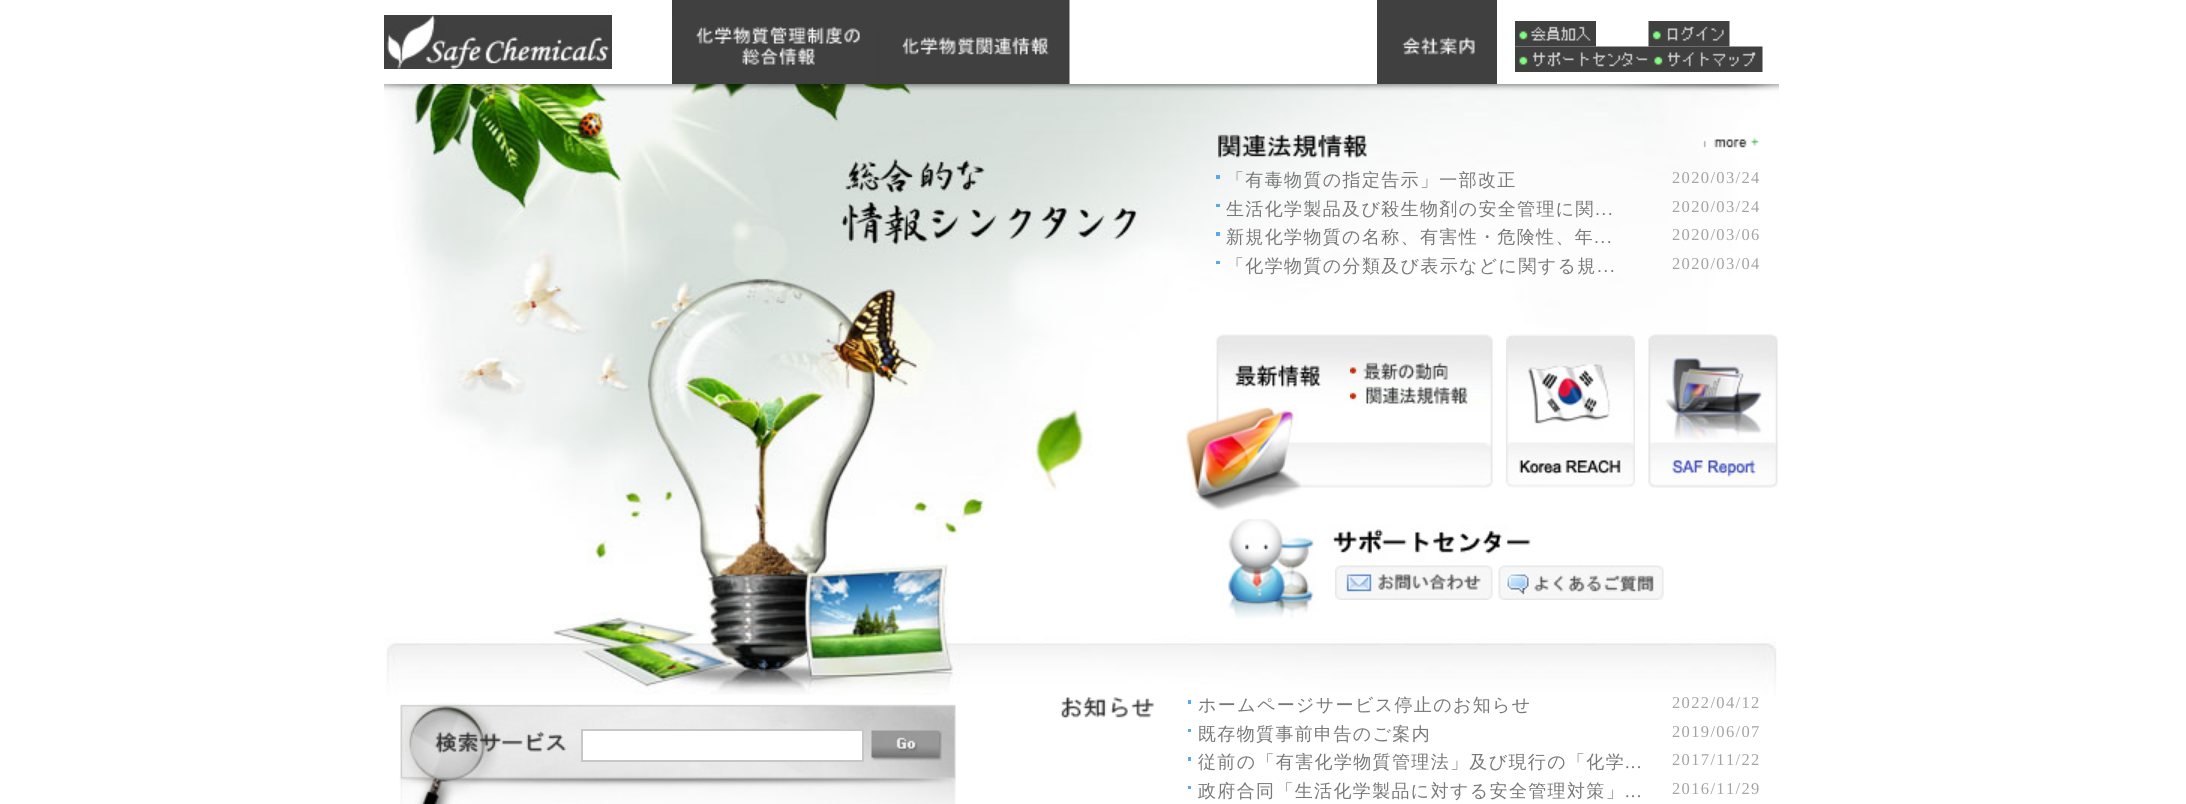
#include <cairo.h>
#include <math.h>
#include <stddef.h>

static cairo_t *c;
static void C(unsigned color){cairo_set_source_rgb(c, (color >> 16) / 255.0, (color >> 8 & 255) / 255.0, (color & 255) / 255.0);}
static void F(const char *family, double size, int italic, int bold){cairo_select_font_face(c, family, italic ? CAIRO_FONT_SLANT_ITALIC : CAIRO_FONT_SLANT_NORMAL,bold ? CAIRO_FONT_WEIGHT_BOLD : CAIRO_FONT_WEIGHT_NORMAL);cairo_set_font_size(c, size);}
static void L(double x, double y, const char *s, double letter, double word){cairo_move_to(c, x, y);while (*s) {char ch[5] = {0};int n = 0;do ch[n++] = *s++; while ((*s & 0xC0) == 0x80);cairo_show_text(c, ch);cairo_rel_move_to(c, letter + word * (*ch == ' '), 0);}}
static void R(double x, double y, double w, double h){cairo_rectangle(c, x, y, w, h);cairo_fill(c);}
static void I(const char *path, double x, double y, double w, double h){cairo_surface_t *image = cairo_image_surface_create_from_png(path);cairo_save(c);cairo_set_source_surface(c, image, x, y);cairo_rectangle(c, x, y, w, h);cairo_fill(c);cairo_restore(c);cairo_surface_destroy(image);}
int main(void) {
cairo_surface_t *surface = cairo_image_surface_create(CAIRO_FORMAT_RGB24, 2186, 804);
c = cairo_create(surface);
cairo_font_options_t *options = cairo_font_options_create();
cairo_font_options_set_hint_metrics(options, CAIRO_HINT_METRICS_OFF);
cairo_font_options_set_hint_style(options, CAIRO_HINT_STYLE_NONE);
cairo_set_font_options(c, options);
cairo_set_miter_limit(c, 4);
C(0xffffff);
cairo_paint(c);
I("1.png",384,15,228,54);
I("2.png",672,0,207,84);
I("3.png",879,0,191,84);
I("4.png",1377,0,120,84);
I("7.png",1515,46,135,26);
I("5.png",1515,21,81,26);
I("6.png",1648,21,82,26);
I("8.png",1650,46,113,26);
I("9.png",384,84,1395,611);
I("10.png",1218,133,149,25);
I("11.png",1703,137,56,11);
C(0x58a9ee);
R(1216,175,4,4);
F("WenQuanYi Zen Hei Medium",18,0,0);
C(0x787878);
L(1226,186,"「有毒物質の指定告示」一部改正",1.35,0);
F("Liberation Serif",16.5,0,0);
C(0xa3a3a3);
L(1672,183,"2020/03/24",1.35,0);
C(0x58a9ee);
R(1216,204,4,3);
F("WenQuanYi Zen Hei Medium",18,0,0);
C(0x787878);
L(1226,215,"生活化学製品及び殺生物剤の安全管理に関",1.35,0);
F("Liberation Serif",16.5,0,0);
C(0xa3a3a3);
L(1672,212,"2020/03/24",1.35,0);
F("Liberation Sans",18,0,0);
C(0x787878);
L(1595,215,"...",1.35,0);
C(0x58a9ee);
R(1216,232,4,4);
F("WenQuanYi Zen Hei Medium",18,0,0);
C(0x787878);
L(1226,243,"新規化学物質の名称、有害性・危険性、年",1.35,0);
F("Liberation Serif",16.5,0,0);
C(0xa3a3a3);
L(1672,240,"2020/03/06",1.35,0);
F("Liberation Sans",18,0,0);
C(0x787878);
L(1594,243,"...",1.35,0);
C(0x58a9ee);
R(1216,261,4,3);
F("WenQuanYi Zen Hei Medium",18,0,0);
C(0x787878);
L(1226,272,"「化学物質の分類及び表示などに関する規",1.35,0);
F("Liberation Serif",16.5,0,0);
C(0xa3a3a3);
L(1672,269,"2020/03/04",1.35,0);
F("Liberation Sans",18,0,0);
C(0x787878);
L(1597,272,"...",1.35,0);
I("12.png",1178,334,315,177);
I("13.png",1350,362,98,18);
I("14.png",1350,385,135,20);
I("15.png",1506,334,129,154);
I("16.png",1648,334,130,154);
I("17.png",1222,519,309,100);
I("18.png",1335,565,158,35);
I("19.png",1498,565,166,35);
I("20.png",399,703,557,101);
C(0xffffff);
cairo_rectangle(c,582,730,281,31);
cairo_fill_preserve(c);
C(0xc7c7c7);
cairo_stroke(c);
I("21.png",871,730,71,31);
I("22.png",1060,696,94,23);
C(0x58a9ee);
R(1188,700,3,4);
F("WenQuanYi Zen Hei Medium",18,0,0);
C(0x787878);
L(1198,711,"ホームページサービス停止のお知らせ",1.35,0);
F("Liberation Serif",16.5,0,0);
C(0xa3a3a3);
L(1672,708,"2022/04/12",1.35,0);
C(0x58a9ee);
R(1188,729,3,3);
F("WenQuanYi Zen Hei Medium",18,0,0);
C(0x787878);
L(1198,740,"既存物質事前申告のご案内",1.35,0);
F("Liberation Serif",16.5,0,0);
C(0xa3a3a3);
L(1672,737,"2019/06/07",1.35,0);
C(0x58a9ee);
R(1188,757,3,4);
F("WenQuanYi Zen Hei Medium",18,0,0);
C(0x787878);
L(1198,768,"従前の「有害化学物質管理法」及び現行の「化学",1.35,0);
F("Liberation Serif",16.5,0,0);
C(0xa3a3a3);
L(1672,765,"2017/11/22",1.35,0);
F("Liberation Serif",18,0,0);
C(0x787878);
L(1625,768,"...",1.35,0);
C(0x58a9ee);
R(1188,786,3,3);
F("WenQuanYi Zen Hei Medium",18,0,0);
C(0x787878);
L(1198,797,"政府合同「生活化学製品に対する安全管理対策」",1.35,0);
F("Liberation Serif",16.5,0,0);
C(0xa3a3a3);
L(1672,794,"2016/11/29",1.35,0);
F("Liberation Serif",18,0,0);
C(0x787878);
L(1625,797,"...",1.35,0);
cairo_surface_write_to_png(surface, "o.png");
cairo_font_options_destroy(options);
cairo_destroy(c);
cairo_surface_destroy(surface);
return 0;
}
